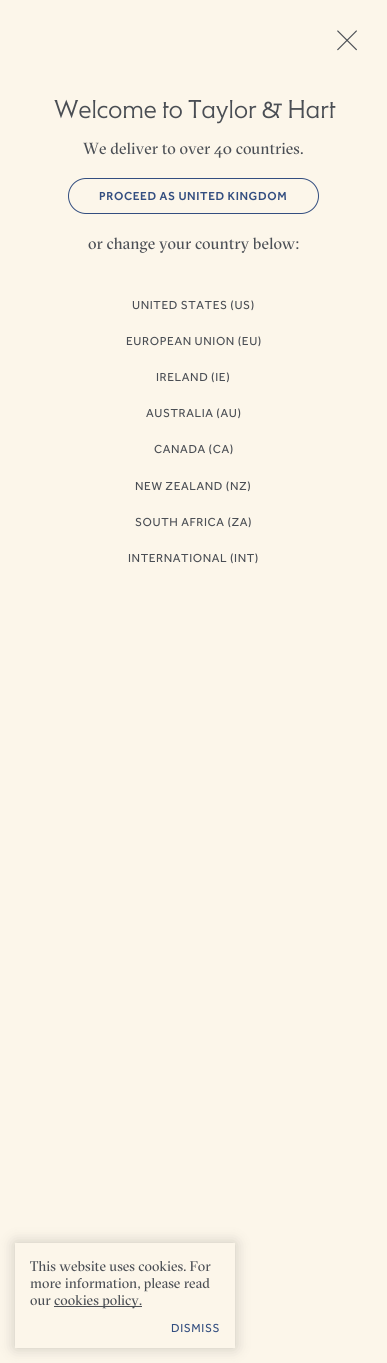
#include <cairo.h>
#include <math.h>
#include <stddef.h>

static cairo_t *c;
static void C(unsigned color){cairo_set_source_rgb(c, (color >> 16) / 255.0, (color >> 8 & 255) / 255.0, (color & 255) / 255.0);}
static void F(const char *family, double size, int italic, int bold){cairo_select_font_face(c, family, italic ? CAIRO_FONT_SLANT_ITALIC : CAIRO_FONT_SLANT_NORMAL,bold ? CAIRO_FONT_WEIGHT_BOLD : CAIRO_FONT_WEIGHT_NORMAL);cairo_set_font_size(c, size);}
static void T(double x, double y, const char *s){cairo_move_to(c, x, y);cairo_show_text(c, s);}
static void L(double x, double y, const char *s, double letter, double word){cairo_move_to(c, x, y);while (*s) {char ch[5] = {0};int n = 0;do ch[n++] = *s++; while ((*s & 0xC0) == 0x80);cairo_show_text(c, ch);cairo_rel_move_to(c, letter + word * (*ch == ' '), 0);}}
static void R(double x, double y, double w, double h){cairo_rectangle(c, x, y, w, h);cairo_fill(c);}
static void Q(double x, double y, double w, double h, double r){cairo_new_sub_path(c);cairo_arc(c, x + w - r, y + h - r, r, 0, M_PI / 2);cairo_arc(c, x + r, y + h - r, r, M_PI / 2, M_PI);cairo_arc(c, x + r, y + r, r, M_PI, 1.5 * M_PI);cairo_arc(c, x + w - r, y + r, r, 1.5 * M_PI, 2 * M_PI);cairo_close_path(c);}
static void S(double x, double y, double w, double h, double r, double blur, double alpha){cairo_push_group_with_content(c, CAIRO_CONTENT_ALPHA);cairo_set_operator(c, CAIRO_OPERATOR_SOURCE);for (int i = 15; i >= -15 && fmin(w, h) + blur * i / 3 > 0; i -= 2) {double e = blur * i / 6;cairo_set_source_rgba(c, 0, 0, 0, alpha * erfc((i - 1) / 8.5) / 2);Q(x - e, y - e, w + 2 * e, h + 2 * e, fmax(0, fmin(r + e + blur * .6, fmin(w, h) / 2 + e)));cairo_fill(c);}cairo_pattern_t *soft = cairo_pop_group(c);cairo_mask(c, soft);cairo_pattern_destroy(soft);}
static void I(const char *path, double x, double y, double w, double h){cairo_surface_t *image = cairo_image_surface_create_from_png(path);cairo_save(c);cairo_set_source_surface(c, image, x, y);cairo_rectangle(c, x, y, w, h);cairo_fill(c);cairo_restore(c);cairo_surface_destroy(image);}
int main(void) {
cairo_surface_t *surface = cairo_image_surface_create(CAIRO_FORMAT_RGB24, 387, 1363);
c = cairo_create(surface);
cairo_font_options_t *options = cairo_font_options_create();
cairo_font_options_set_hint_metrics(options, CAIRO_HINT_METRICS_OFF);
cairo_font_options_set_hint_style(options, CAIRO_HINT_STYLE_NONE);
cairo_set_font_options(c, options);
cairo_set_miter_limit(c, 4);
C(0xfcf6ea);
cairo_paint(c);
I("1.png",337,30,20,21);
F("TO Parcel",24,0,0);
C(0x4a4e54);
T(54,118,"Welcome to Taylor & Hart");
F("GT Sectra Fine",16,0,0);
T(83,154,"We deliver to over 40 countries.");
Q(68.5,178.5,250,35,17.5);
C(0x334e80);
cairo_set_line_width(c,1);
cairo_stroke(c);
F("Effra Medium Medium",12,0,0);
L(99,200,"PROCEED AS UNITED KINGDOM",.6,0);
F("GT Sectra Fine",16,0,0);
C(0x4a4e54);
T(88,249,"or change your country below:");
F("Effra",12,0,0);
L(132,309,"UNITED STATES (US)",.6,0);
L(126,345,"EUROPEAN UNION (EU)",.6,0);
L(156,381,"IRELAND (IE)",.6,0);
L(146,417,"AUSTRALIA (AU)",.6,0);
L(154,453,"CANADA (CA)",.6,0);
L(135,490,"NEW ZEALAND (NZ)",.6,0);
L(135,526,"SOUTH AFRICA (ZA)",.6,0);
L(128,562,"INTERNATIONAL (INT)",.6,0);
cairo_save(c);
cairo_set_fill_rule(c,CAIRO_FILL_RULE_EVEN_ODD);
cairo_new_path(c);
cairo_move_to(c,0,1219);
cairo_line_to(c,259,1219);
cairo_line_to(c,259,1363);
cairo_line_to(c,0,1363);
cairo_close_path(c);
cairo_move_to(c,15,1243);
cairo_line_to(c,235,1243);
cairo_line_to(c,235,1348);
cairo_line_to(c,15,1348);
cairo_close_path(c);
cairo_clip(c);
C(0x000000);
S(15,1243,220,105,0,7.5,.2);
cairo_restore(c);
F("GT Sectra Fine",14,0,0);
T(30,1271,"This website uses cookies. For");
T(30,1288,"more information, please read");
T(30,1305,"our");
R(54,1306,88,1);
T(54,1305,"cookies policy.");
F("Effra",12,0,0);
C(0x334e80);
L(171,1332,"DISMISS",.6,0);
cairo_surface_write_to_png(surface, "o.png");
cairo_font_options_destroy(options);
cairo_destroy(c);
cairo_surface_destroy(surface);
return 0;
}
